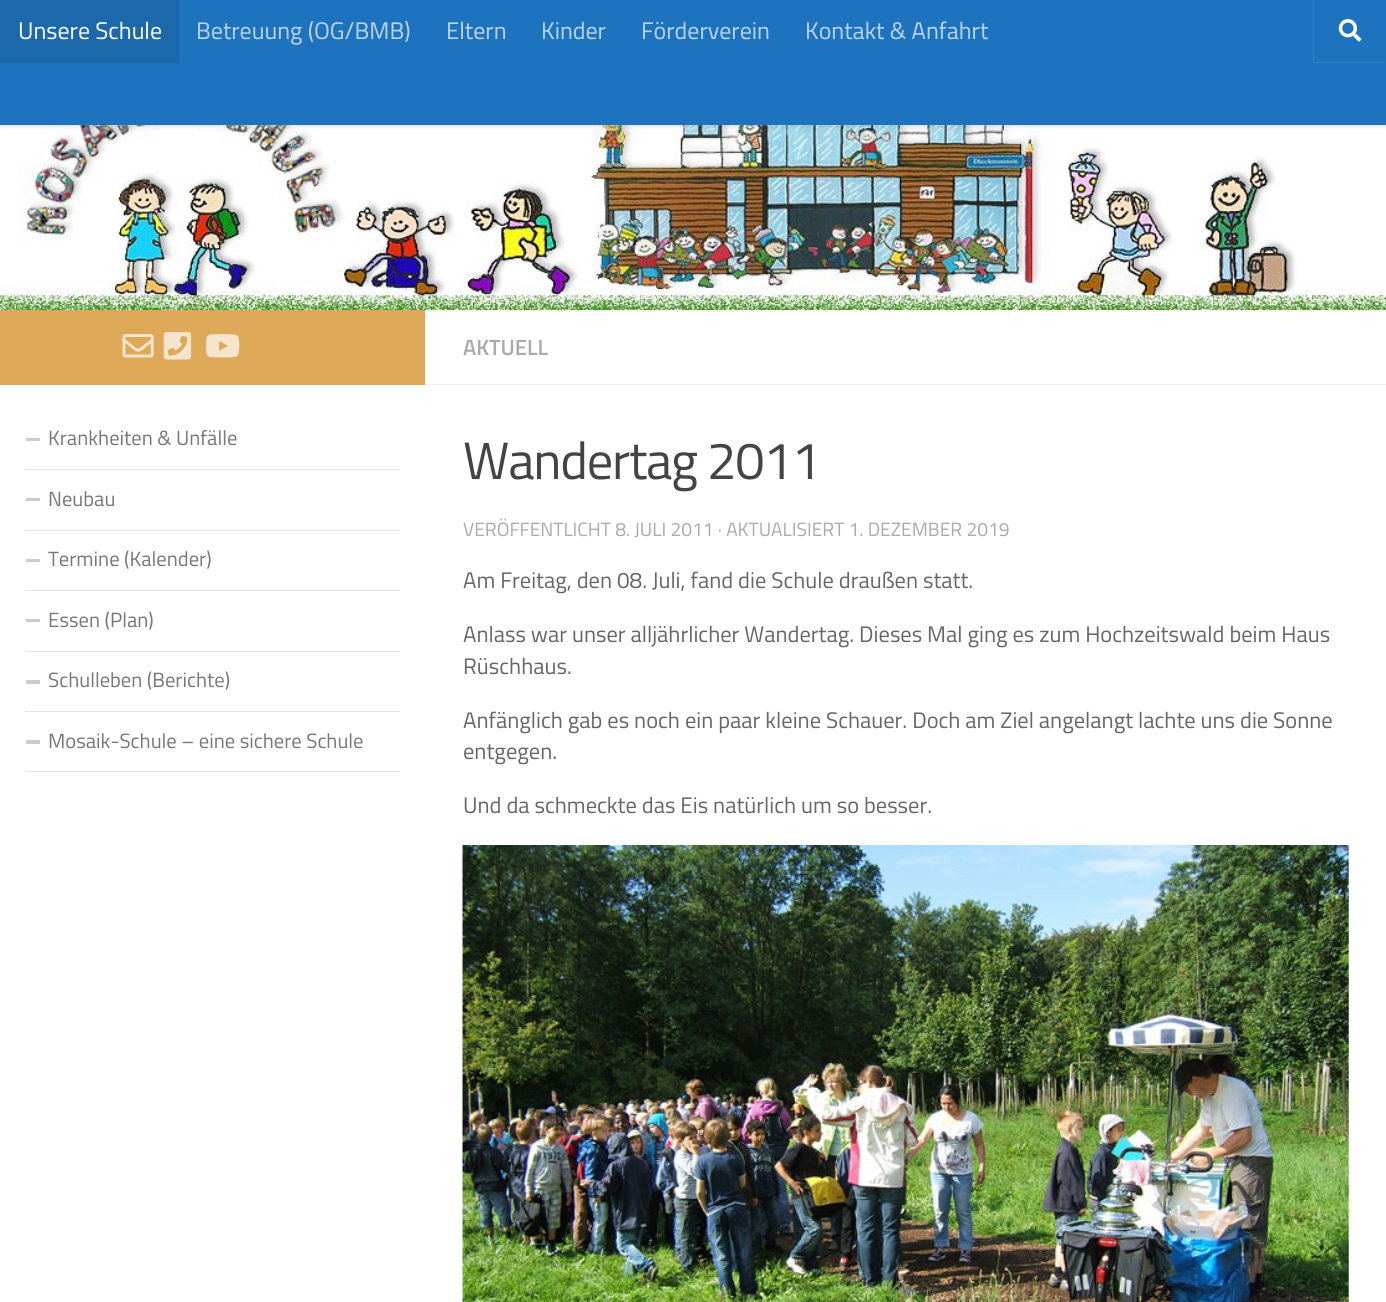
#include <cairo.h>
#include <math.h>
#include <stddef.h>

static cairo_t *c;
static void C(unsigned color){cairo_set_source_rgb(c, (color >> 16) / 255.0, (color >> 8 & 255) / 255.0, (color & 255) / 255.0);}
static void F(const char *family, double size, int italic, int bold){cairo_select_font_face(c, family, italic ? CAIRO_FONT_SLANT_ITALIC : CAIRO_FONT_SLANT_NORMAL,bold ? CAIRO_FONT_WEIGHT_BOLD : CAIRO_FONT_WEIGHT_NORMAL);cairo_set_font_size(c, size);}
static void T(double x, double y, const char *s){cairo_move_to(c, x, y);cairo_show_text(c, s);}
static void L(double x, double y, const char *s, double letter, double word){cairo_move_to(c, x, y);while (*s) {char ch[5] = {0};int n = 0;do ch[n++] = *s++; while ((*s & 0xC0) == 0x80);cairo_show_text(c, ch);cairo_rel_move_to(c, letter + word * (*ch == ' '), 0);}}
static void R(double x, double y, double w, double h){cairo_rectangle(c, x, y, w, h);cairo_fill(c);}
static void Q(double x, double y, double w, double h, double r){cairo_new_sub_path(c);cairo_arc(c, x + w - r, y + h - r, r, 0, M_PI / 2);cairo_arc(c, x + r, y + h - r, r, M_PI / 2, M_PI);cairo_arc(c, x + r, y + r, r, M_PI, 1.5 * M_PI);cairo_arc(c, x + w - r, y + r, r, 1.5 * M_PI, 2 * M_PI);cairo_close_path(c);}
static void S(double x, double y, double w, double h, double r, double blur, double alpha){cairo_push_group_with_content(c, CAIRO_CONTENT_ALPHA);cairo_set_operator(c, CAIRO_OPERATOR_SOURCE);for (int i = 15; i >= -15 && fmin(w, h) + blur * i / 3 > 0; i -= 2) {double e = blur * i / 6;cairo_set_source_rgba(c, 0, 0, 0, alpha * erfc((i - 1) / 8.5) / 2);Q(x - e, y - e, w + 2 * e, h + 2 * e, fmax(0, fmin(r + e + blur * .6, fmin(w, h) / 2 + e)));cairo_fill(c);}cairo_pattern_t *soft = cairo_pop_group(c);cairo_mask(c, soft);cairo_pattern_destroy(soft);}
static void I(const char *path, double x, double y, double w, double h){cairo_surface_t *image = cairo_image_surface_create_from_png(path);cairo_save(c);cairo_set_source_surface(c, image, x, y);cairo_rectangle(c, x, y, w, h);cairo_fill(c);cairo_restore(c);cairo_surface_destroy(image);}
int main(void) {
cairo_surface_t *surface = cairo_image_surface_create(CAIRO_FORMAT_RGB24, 1386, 1302);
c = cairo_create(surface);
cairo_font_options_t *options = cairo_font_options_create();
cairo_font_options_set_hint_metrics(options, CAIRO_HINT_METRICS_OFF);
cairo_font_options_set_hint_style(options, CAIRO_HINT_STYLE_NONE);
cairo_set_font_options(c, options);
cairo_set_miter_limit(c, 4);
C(0xffffff);
cairo_paint(c);
I("2.png",0,125,1386,185);
cairo_set_source_rgba(c,1,1,1,0.15);
R(79,125,925,1);
C(0x000000);
S(0,0,1386,125,0,3,.2);
C(0x1e73be);
R(0,0,1386,125);
C(0x1b68ab);
R(0,0,179,63);
F("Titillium",24,0,0);
C(0xffffff);
T(18,39,"Unsere Schule");
C(0xbcd5ec);
T(196,39,"Betreuung (OG/BMB)");
T(446,39,"Eltern");
T(541,39,"Kinder");
T(641,39,"Förderverein");
T(805,39,"Kontakt & Anfahrt");
C(0x3581c5);
cairo_new_path(c);
cairo_move_to(c,1313,0);
cairo_line_to(c,1313,63);
cairo_line_to(c,1385,63);
cairo_line_to(c,1385,62);
cairo_line_to(c,1314,62);
cairo_line_to(c,1314,0);
cairo_close_path(c);
cairo_fill(c);
I("1.png",1338,19,24,23);
C(0xdda858);
R(0,310,425,75);
I("3.png",122,334,32,24);
I("4.png",163,332,29,28);
I("5.png",205,334,35,24);
C(0xe4e4e4);
R(25,469,375,1);
C(0xcccccc);
R(26,438,14,3);
F("Titillium",20.6,0,0);
C(0x777777);
T(48,445,"Krankheiten & Unfälle");
C(0xe4e4e4);
R(25,530,375,1);
C(0xcccccc);
R(26,498,14,3);
C(0x777777);
T(48,506,"Neubau");
C(0xe4e4e4);
R(25,590,375,1);
C(0xcccccc);
R(26,559,14,3);
C(0x777777);
T(48,566,"Termine (Kalender)");
C(0xe4e4e4);
R(25,651,375,1);
C(0xcccccc);
R(26,619,14,3);
C(0x777777);
T(48,627,"Essen (Plan)");
C(0xe4e4e4);
R(25,711,375,1);
C(0xcccccc);
R(26,680,14,4);
C(0x777777);
T(48,687,"Schulleben (Berichte)");
C(0xe4e4e4);
R(25,771,375,1);
C(0xcccccc);
R(26,740,14,4);
C(0x777777);
T(48,748,"Mosaik-Schule – eine sichere Schule");
C(0xeeeeee);
R(425,384,961,1);
F("Titillium SemiBold",22,0,0);
C(0xaaaaaa);
T(463,355,"AKTUELL");
F("Titillium",52.5,0,0);
C(0x444444);
L(463,479,"Wandertag 2011",-1.25,0);
F("Titillium",19.25,0,0);
C(0xaaaaaa);
T(463,536,"VERÖFFENTLICHT 8. JULI 2011 · AKTUALISIERT 1. DEZEMBER 2019");
F("Titillium",22.5,0,0);
C(0x666666);
T(463,588,"Am Freitag, den 08. Juli, fand die Schule draußen statt.");
T(463,642,"Anlass war unser alljährlicher Wandertag. Dieses Mal ging es zum Hochzeitswald beim Haus");
T(463,674,"Rüschhaus.");
T(463,728,"Anfänglich gab es noch ein paar kleine Schauer. Doch am Ziel angelangt lachte uns die Sonne");
T(463,759,"entgegen.");
T(463,813,"Und da schmeckte das Eis natürlich um so besser.");
I("6.png",462,845,887,457);
cairo_surface_write_to_png(surface, "o.png");
cairo_font_options_destroy(options);
cairo_destroy(c);
cairo_surface_destroy(surface);
return 0;
}
